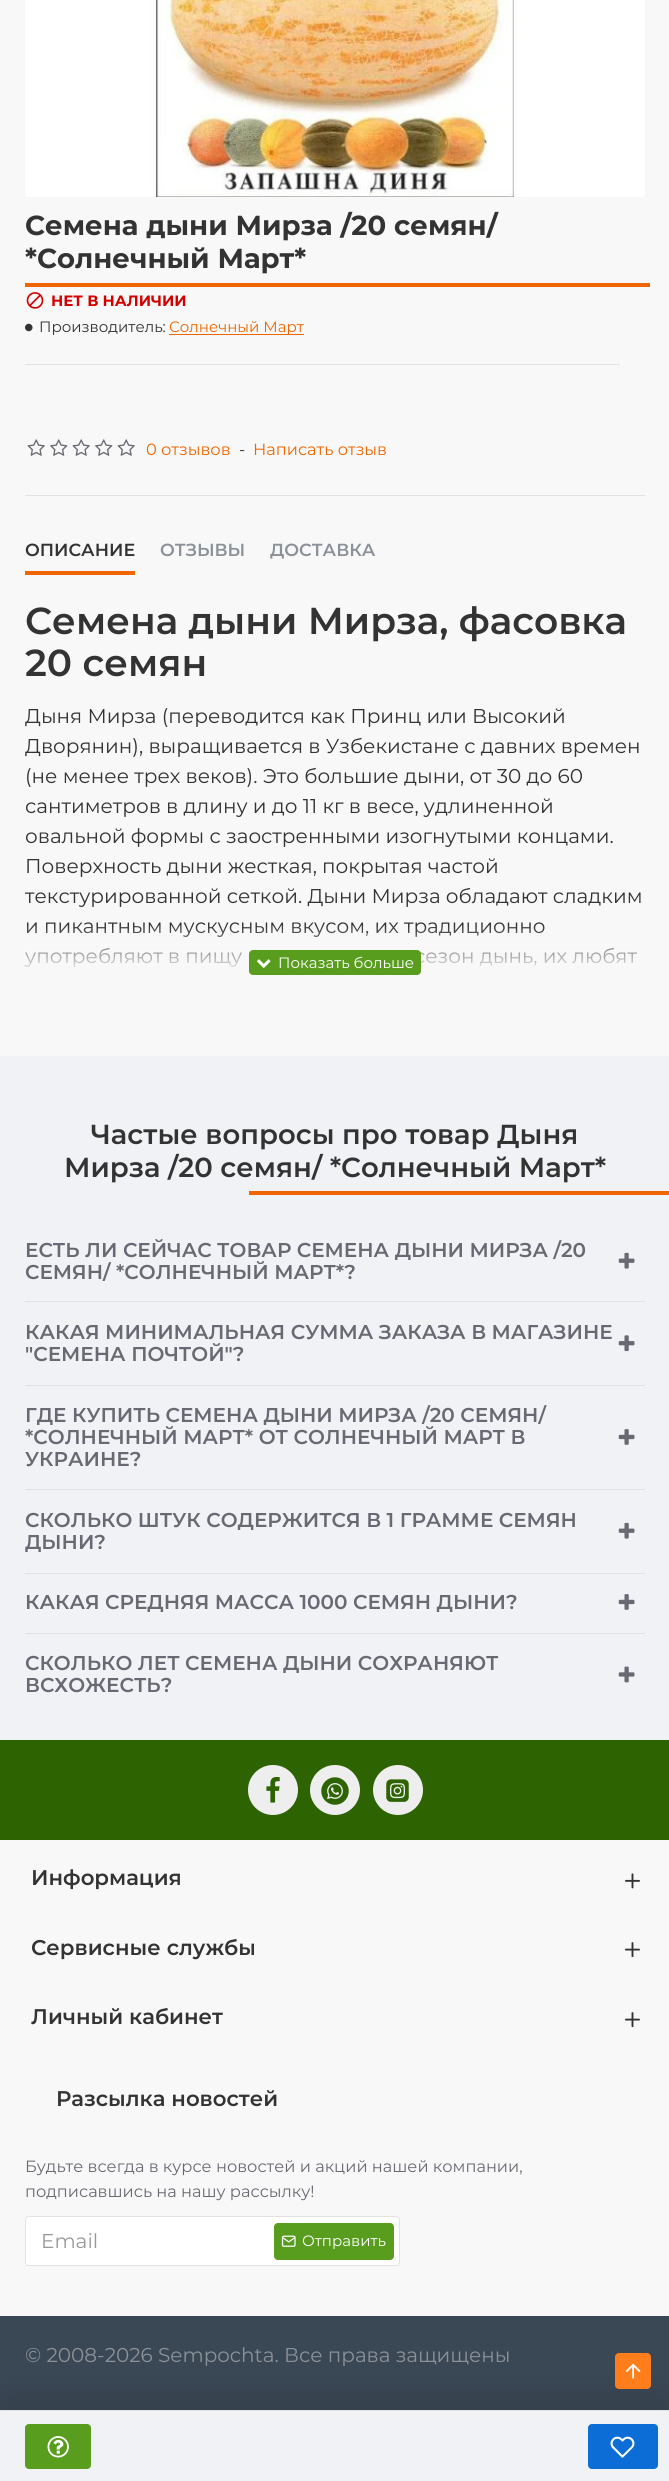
#include <cairo.h>
#include <math.h>
#include <stddef.h>

static cairo_t *c;
static void C(unsigned color){cairo_set_source_rgb(c, (color >> 16) / 255.0, (color >> 8 & 255) / 255.0, (color & 255) / 255.0);}
static void F(const char *family, double size, int italic, int bold){cairo_select_font_face(c, family, italic ? CAIRO_FONT_SLANT_ITALIC : CAIRO_FONT_SLANT_NORMAL,bold ? CAIRO_FONT_WEIGHT_BOLD : CAIRO_FONT_WEIGHT_NORMAL);cairo_set_font_size(c, size);}
static void T(double x, double y, const char *s){cairo_move_to(c, x, y);cairo_show_text(c, s);}
static void R(double x, double y, double w, double h){cairo_rectangle(c, x, y, w, h);cairo_fill(c);}
static void Q(double x, double y, double w, double h, double r){cairo_new_sub_path(c);cairo_arc(c, x + w - r, y + h - r, r, 0, M_PI / 2);cairo_arc(c, x + r, y + h - r, r, M_PI / 2, M_PI);cairo_arc(c, x + r, y + r, r, M_PI, 1.5 * M_PI);cairo_arc(c, x + w - r, y + r, r, 1.5 * M_PI, 2 * M_PI);cairo_close_path(c);}
static void S(double x, double y, double w, double h, double r, double blur, double alpha){cairo_push_group_with_content(c, CAIRO_CONTENT_ALPHA);cairo_set_operator(c, CAIRO_OPERATOR_SOURCE);for (int i = 15; i >= -15 && fmin(w, h) + blur * i / 3 > 0; i -= 2) {double e = blur * i / 6;cairo_set_source_rgba(c, 0, 0, 0, alpha * erfc((i - 1) / 8.5) / 2);Q(x - e, y - e, w + 2 * e, h + 2 * e, fmax(0, fmin(r + e + blur * .6, fmin(w, h) / 2 + e)));cairo_fill(c);}cairo_pattern_t *soft = cairo_pop_group(c);cairo_mask(c, soft);cairo_pattern_destroy(soft);}
static void I(const char *path, double x, double y, double w, double h){cairo_surface_t *image = cairo_image_surface_create_from_png(path);cairo_save(c);cairo_set_source_surface(c, image, x, y);cairo_rectangle(c, x, y, w, h);cairo_fill(c);cairo_restore(c);cairo_surface_destroy(image);}
int main(void) {
cairo_surface_t *surface = cairo_image_surface_create(CAIRO_FORMAT_RGB24, 669, 2481);
c = cairo_create(surface);
cairo_font_options_t *options = cairo_font_options_create();
cairo_font_options_set_hint_metrics(options, CAIRO_HINT_METRICS_OFF);
cairo_font_options_set_hint_style(options, CAIRO_HINT_STYLE_NONE);
cairo_set_font_options(c, options);
cairo_set_miter_limit(c, 4);
cairo_pattern_t *gradient;
C(0xf8f8f8);
cairo_paint(c);
I("1.png",25,0,620,197);
F("Montserrat",27.5,0,1);
C(0x333333);
T(25,235,"Семена дыни Мирза /20 семян/");
T(25,268,"*Солнечный Март*");
C(0xef6600);
R(25,283,625,4);
C(0xe2e2e2);
R(25,364,595,1);
I("2.png",26,292,18,17);
F("Montserrat",15,0,1);
C(0xd30000);
T(51,306,"НЕТ В НАЛИЧИИ");
I("3.png",25,323,8,9);
F("Montserrat",15,0,0);
C(0x333333);
T(39,332,"Производитель:");
C(0xef6600);
R(169,334,135,1);
T(169,332,"Солнечный Март");
C(0xe2e2e2);
R(25,495,620,1);
I("4.png",27,439,18,17);
I("5.png",50,439,18,17);
I("4.png",72,439,18,17);
I("5.png",95,439,18,17);
I("4.png",117,439,18,17);
F("Montserrat",16.25,0,0);
C(0xef6600);
T(146,455,"0 отзывов");
C(0x333333);
T(239,455,"-");
C(0xef6600);
T(253,455,"Написать отзыв");
C(0x3a4754);
R(0,2316,669,94);
C(0x000000);
S(6,2404,658,59,0,19,.15);
C(0xf0f2f5);
R(0,2411,669,70);
C(0xe2e2e2);
R(0,2410,669,1);
C(0x599d1f);
Q(25,2424,66,45,4);
cairo_fill(c);
I("6.png",47,2436,22,22);
C(0x0d6dd6);
Q(588,2424,70,45,4);
cairo_fill(c);
I("7.png",610,2436,25,22);
C(0xef6600);
R(25,571,110,4);
F("Montserrat SemiBold",17.5,0,0);
C(0x333333);
T(25,556,"ОПИСАНИЕ");
C(0x8b9198);
T(160,556,"ОТЗЫВЫ");
T(270,556,"ДОСТАВКА");
F("Montserrat SemiBold",37.5,0,0);
C(0x333333);
T(25,634,"Семена дыни Мирза, фасовка");
T(25,676,"20 семян");
F("Montserrat",20,0,0);
T(25,723,"Дыня Мирза (переводится как Принц или Высокий");
T(25,753,"Дворянин), выращивается в Узбекистане с давних времен");
T(25,783,"(не менее трех веков). Это большие дыни, от 30 до 60");
T(25,813,"сантиметров в длину и до 11 кг в весе, удлиненной");
T(25,843,"овальной формы с заостренными изогнутыми концами.");
T(25,873,"Поверхность дыни жесткая, покрытая частой");
T(25,903,"текстурированной сеткой. Дыни Мирза обладают сладким");
T(25,933,"и пикантным мускусным вкусом, их традиционно");
T(25,963,"употребляют в пищу");
T(414,963,"сезон дынь, их любят");
gradient = cairo_pattern_create_linear(335,925,335,975);
cairo_pattern_add_color_stop_rgba(gradient,0,0.973,0.973,0.973,0);
cairo_pattern_add_color_stop_rgba(gradient,1,0.973,0.973,0.973,1);
cairo_set_source(c,gradient);
cairo_pattern_destroy(gradient);
R(25,926,612,41);
C(0x599d1f);
Q(249,950,172,25,4);
cairo_fill(c);
I("8.png",257,959,14,9);
F("Montserrat",15,0,0);
C(0xffffff);
T(278,968,"Показать больше");
C(0xf0f2f5);
R(0,1056,669,684);
F("Montserrat SemiBold",27.5,0,0);
C(0x333333);
T(91,1144,"Частые вопросы про товар Дыня");
T(64,1177,"Мирза /20 семян/ *Солнечный Март*");
C(0xef6600);
R(249,1191,420,4);
F("Montserrat SemiBold",20,0,0);
C(0x696973);
T(25,1257,"ЕСТЬ ЛИ СЕЙЧАС ТОВАР СЕМЕНА ДЫНИ МИРЗА /20");
I("9.png",618,1252,17,17);
T(25,1279,"СЕМЯН/ *СОЛНЕЧНЫЙ МАРТ*?");
C(0xe2e2e2);
R(25,1301,620,1);
C(0x696973);
T(25,1339,"КАКАЯ МИНИМАЛЬНАЯ СУММА ЗАКАЗА В МАГАЗИНЕ");
T(25,1361,"\"СЕМЕНА ПОЧТОЙ\"?");
I("10.png",618,1335,17,17);
C(0xe2e2e2);
R(25,1385,620,1);
C(0x696973);
T(25,1422,"ГДЕ КУПИТЬ СЕМЕНА ДЫНИ МИРЗА /20 СЕМЯН/");
T(25,1444,"*СОЛНЕЧНЫЙ МАРТ* ОТ СОЛНЕЧНЫЙ МАРТ В");
I("11.png",618,1429,17,16);
T(25,1466,"УКРАИНЕ?");
C(0xe2e2e2);
R(25,1489,620,1);
C(0x696973);
T(25,1527,"СКОЛЬКО ШТУК СОДЕРЖИТСЯ В 1 ГРАММЕ СЕМЯН");
I("9.png",618,1522,17,17);
T(25,1549,"ДЫНИ?");
C(0xe2e2e2);
R(25,1573,620,1);
C(0x696973);
T(25,1609,"КАКАЯ СРЕДНЯЯ МАССА 1000 СЕМЯН ДЫНИ?");
I("11.png",618,1594,17,16);
C(0xe2e2e2);
R(25,1633,620,1);
C(0x696973);
T(25,1670,"СКОЛЬКО ЛЕТ СЕМЕНА ДЫНИ СОХРАНЯЮТ");
I("12.png",618,1666,17,17);
T(25,1692,"ВСХОЖЕСТЬ?");
C(0x2d6300);
R(0,1740,669,100);
C(0xeeeeee);
cairo_new_path(c);
cairo_arc(c,273,1790,25,0,2 * M_PI);
cairo_fill(c);
I("13.png",266,1777,14,26);
cairo_arc(c,335,1790,25,0,2 * M_PI);
cairo_fill(c);
I("14.png",321,1777,28,28);
cairo_arc(c,398,1790,25,0,2 * M_PI);
cairo_fill(c);
I("15.png",386,1779,23,23);
F("Montserrat SemiBold",21.25,0,0);
C(0x333333);
T(31,1885,"Информация");
I("16.png",625,1873,15,16);
T(31,1955,"Сервисные службы");
I("17.png",625,1942,15,16);
T(31,2024,"Личный кабинет");
I("17.png",625,2012,15,16);
T(56,2106,"Разсылка новостей");
F("Montserrat",16.25,0,0);
C(0x696973);
T(25,2172,"Будьте всегда в курсе новостей и акций нашей компании,");
T(25,2197,"подписавшись на нашу рассылку!");
C(0xffffff);
Q(25.5,2216.5,374,49,3.5);
cairo_fill_preserve(c);
C(0xe2e2e2);
cairo_set_line_width(c,1);
cairo_stroke(c);
F("Montserrat",20,0,0);
C(0x999999);
T(41,2248,"Email");
C(0x599d1f);
Q(274,2223,120,37,4);
cairo_fill(c);
I("18.png",281,2235,15,12);
F("Montserrat",15,0,0);
C(0xffffff);
T(302,2246,"Отправить");
F("Montserrat",20,0,0);
C(0x8b9198);
T(25,2362,"© 2008-2026 Sempochta. Все права защищены");
C(0xff7d1b);
Q(615,2353,36,36,4);
cairo_fill(c);
I("19.png",625,2363,16,16);
cairo_surface_write_to_png(surface, "o.png");
cairo_font_options_destroy(options);
cairo_destroy(c);
cairo_surface_destroy(surface);
return 0;
}
